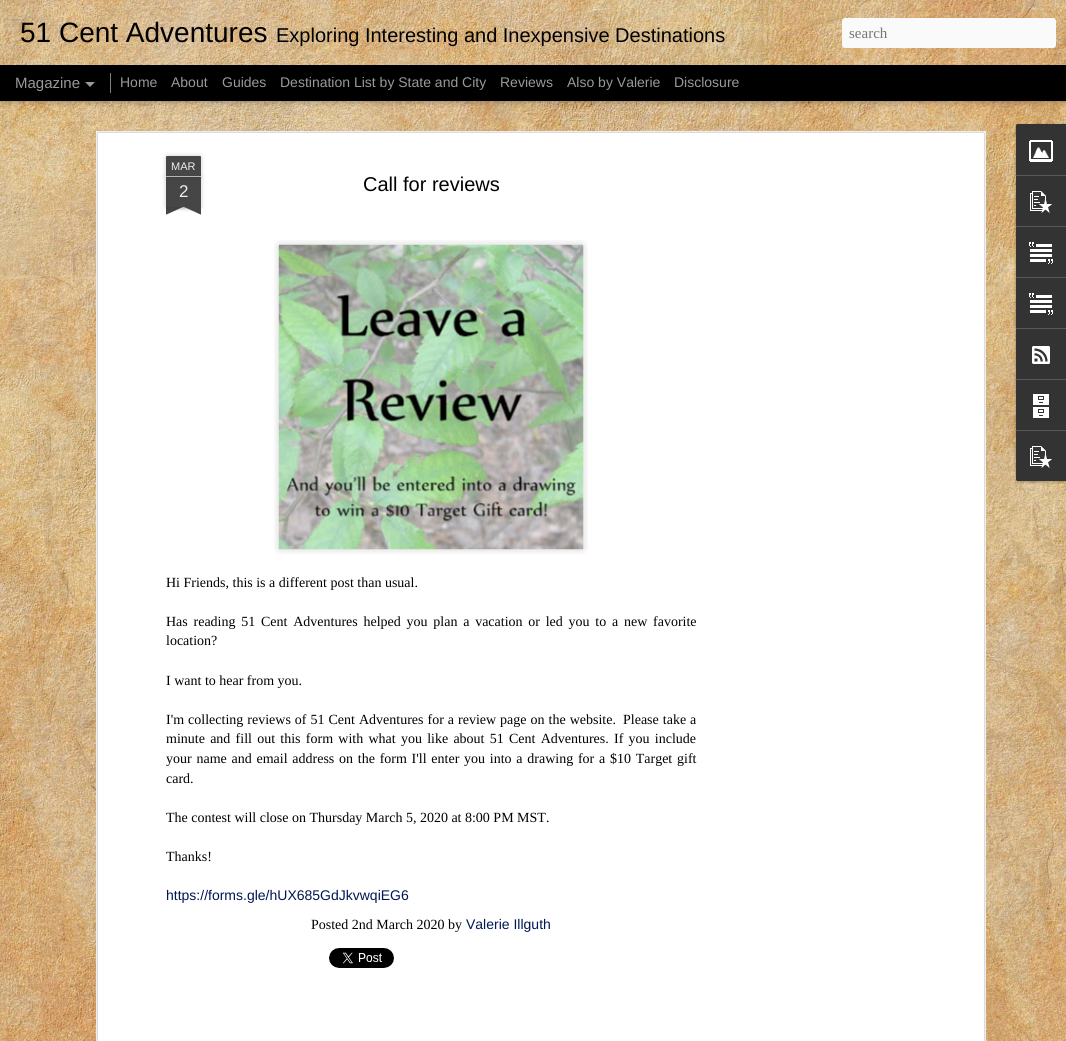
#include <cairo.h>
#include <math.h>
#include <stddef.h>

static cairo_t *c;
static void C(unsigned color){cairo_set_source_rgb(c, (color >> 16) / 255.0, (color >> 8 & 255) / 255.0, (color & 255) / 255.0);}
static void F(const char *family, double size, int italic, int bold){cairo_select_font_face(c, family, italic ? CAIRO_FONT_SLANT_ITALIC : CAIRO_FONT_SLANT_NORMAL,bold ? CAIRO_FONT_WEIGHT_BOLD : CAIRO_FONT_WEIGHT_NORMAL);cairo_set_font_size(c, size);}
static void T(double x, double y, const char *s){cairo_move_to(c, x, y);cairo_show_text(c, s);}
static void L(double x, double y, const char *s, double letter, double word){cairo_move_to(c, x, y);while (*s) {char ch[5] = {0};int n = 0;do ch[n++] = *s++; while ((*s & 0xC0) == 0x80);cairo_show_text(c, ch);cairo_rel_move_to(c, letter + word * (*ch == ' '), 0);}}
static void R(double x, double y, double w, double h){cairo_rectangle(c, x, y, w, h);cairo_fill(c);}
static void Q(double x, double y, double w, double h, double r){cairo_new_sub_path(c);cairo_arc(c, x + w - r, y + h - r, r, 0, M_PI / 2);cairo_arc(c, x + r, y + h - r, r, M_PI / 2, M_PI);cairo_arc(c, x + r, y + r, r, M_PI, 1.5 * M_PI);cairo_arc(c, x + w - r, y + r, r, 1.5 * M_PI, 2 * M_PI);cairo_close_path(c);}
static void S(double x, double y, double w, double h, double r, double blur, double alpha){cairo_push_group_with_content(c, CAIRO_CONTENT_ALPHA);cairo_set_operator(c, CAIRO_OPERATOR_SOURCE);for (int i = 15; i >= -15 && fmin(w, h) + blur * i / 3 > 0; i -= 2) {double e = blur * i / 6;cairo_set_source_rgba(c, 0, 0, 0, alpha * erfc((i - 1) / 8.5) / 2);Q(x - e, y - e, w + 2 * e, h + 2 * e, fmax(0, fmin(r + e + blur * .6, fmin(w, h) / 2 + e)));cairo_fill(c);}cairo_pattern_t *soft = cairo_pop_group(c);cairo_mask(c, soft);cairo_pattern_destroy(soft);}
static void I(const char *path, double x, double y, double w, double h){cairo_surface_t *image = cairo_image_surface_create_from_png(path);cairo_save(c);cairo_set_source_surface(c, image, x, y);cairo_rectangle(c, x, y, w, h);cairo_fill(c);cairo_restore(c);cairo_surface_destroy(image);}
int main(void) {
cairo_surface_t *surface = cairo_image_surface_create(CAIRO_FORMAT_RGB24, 1066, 1041);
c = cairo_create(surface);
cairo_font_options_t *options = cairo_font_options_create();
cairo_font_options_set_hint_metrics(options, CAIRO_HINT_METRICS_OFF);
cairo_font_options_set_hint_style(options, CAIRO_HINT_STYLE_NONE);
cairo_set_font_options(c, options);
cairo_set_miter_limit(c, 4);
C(0x000000);
cairo_paint(c);
I("2.png",0,101,1066,940);
S(0,65,1066,35,0,4,.5);
I("1.png",0,0,1066,65);
F("Liberation Sans",28,0,0);
C(0x000000);
T(20,42,"51 Cent Adventures");
F("Liberation Sans",20,0,0);
T(276,42,"Exploring Interesting and Inexpensive Destinations");
C(0xfafafa);
Q(842,18,214,30,3);
cairo_fill(c);
F("Liberation Serif",15,0,0);
C(0x757575);
T(849,38,"search");
F("Liberation Sans",15,0,0);
C(0x999999);
T(15,88,"Magazine");
cairo_new_path(c);
cairo_move_to(c,85,82);
cairo_line_to(c,95,82);
cairo_line_to(c,90,87);
cairo_close_path(c);
cairo_fill(c);
C(0x808080);
R(110,73,1,20);
F("Liberation Sans",14,0,0);
C(0x999999);
T(120,87,"Home");
T(171,87,"About");
T(222,87,"Guides");
T(280,87,"Destination List by State and City");
T(500,87,"Reviews");
T(567,87,"Also by Valerie");
T(674,87,"Disclosure");
C(0xffffff);
R(96,131,890,910);
I("3.png",96,131,890,910);
C(0x000000);
S(166,177,35,30,0,2.5,.2);
C(0x464646);
R(166,177,35,30);
C(0x000000);
S(166,156,35,21,1,2.5,.2);
C(0x464646);
cairo_new_path(c);
cairo_move_to(c,167,156);
cairo_line_to(c,200,156);
cairo_curve_to(c,200.5,156,201,156.5,201,157);
cairo_line_to(c,201,177);
cairo_line_to(c,166,177);
cairo_line_to(c,166,157);
cairo_curve_to(c,166,156.5,166.5,156,167,156);
cairo_close_path(c);
cairo_fill(c);
C(0xb5b5b5);
R(166,176,35,1);
F("Liberation Sans",11,0,0);
C(0xeeeeee);
T(171,170,"MAR");
F("Liberation Sans",17,0,0);
T(179,197,"2");
cairo_save(c);
cairo_rectangle(c,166,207,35,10);
cairo_clip(c);
C(0x000000);
S(157,197,50,10,0,2.5,.2);
cairo_restore(c);
cairo_save(c);
cairo_rectangle(c,166,207,35,10);
cairo_clip(c);
C(0x464646);
cairo_new_path(c);
cairo_move_to(c,157,208);
cairo_line_to(c,203,187);
cairo_line_to(c,207,196);
cairo_line_to(c,161,217);
cairo_close_path(c);
cairo_fill(c);
cairo_restore(c);
cairo_save(c);
cairo_rectangle(c,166,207,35,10);
cairo_clip(c);
C(0x000000);
S(160,197,50,10,0,2.5,.2);
cairo_restore(c);
cairo_save(c);
cairo_rectangle(c,166,207,35,10);
cairo_clip(c);
C(0x464646);
cairo_new_path(c);
cairo_move_to(c,164,187);
cairo_line_to(c,210,208);
cairo_line_to(c,206,217);
cairo_line_to(c,160,196);
cairo_close_path(c);
cairo_fill(c);
cairo_restore(c);
F("Liberation Sans",20,0,0);
C(0x000000);
T(363,191,"Call for reviews");
I("4.png",274,240,314,314);
I("5.png",278,244,306,306);
F("Liberation Serif",14,0,0);
T(166,587,"Hi Friends, this is a different post than usual.");
L(166,626,"Has reading 51 Cent Adventures helped you plan a vacation or led you to a new favorite",0,2.25);
T(166,645,"location?");
T(166,685,"I want to hear from you.");
L(166,724,"I'm collecting reviews of 51 Cent Adventures for a review page on the website.",0,.5);
L(623,724,"Please take a",0,.5);
L(166,743,"minute and fill out this form with what you like about 51 Cent Adventures. If you include",0,1.75);
L(166,763,"your name and email address on the form I'll enter you into a drawing for a $10 Target gift",0,1.25);
T(166,783,"card.");
T(166,822,"The contest will close on Thursday March 5, 2020 at 8:00 PM MST.");
T(166,861,"Thanks!");
F("Liberation Sans",14,0,0);
C(0x001751);
T(166,900,"https://forms.gle/hUX685GdJkvwqiEG6");
F("Liberation Serif",14,0,0);
C(0x000000);
T(311,929,"Posted 2nd March 2020 by");
F("Liberation Sans",14,0,0);
C(0x001751);
T(466,929,"Valerie Illguth");
I("6.png",329,948,65,20);
C(0x000000);
S(1016,125,50,357,2,1.5,.3);
C(0x333333);
cairo_new_path(c);
cairo_move_to(c,1018,124);
cairo_line_to(c,1066,124);
cairo_line_to(c,1066,481);
cairo_line_to(c,1018,481);
cairo_curve_to(c,1017,481,1016,480,1016,479);
cairo_line_to(c,1016,126);
cairo_curve_to(c,1016,125,1017,124,1018,124);
cairo_close_path(c);
cairo_fill(c);
cairo_new_path(c);
cairo_move_to(c,1018,124);
cairo_line_to(c,1066,124);
cairo_line_to(c,1066,175);
cairo_line_to(c,1016,175);
cairo_line_to(c,1016,126);
cairo_curve_to(c,1016,125,1017,124,1018,124);
cairo_close_path(c);
cairo_fill(c);
I("7.png",1029,140,24,22);
C(0x585858);
R(1016,175,50,1);
I("8.png",1030,191,22,22);
R(1016,226,50,1);
I("9.png",1029,242,24,22);
R(1016,277,50,1);
I("9.png",1029,293,24,22);
R(1016,328,50,1);
I("10.png",1032,346,18,18);
R(1016,379,50,1);
I("11.png",1033,394,16,24);
C(0x333333);
cairo_new_path(c);
cairo_move_to(c,1016,430);
cairo_line_to(c,1066,430);
cairo_line_to(c,1066,481);
cairo_line_to(c,1018,481);
cairo_curve_to(c,1017,481,1016,480,1016,479);
cairo_close_path(c);
cairo_fill(c);
C(0x585858);
R(1016,430,50,1);
I("8.png",1030,446,22,22);
cairo_surface_write_to_png(surface, "o.png");
cairo_font_options_destroy(options);
cairo_destroy(c);
cairo_surface_destroy(surface);
return 0;
}
